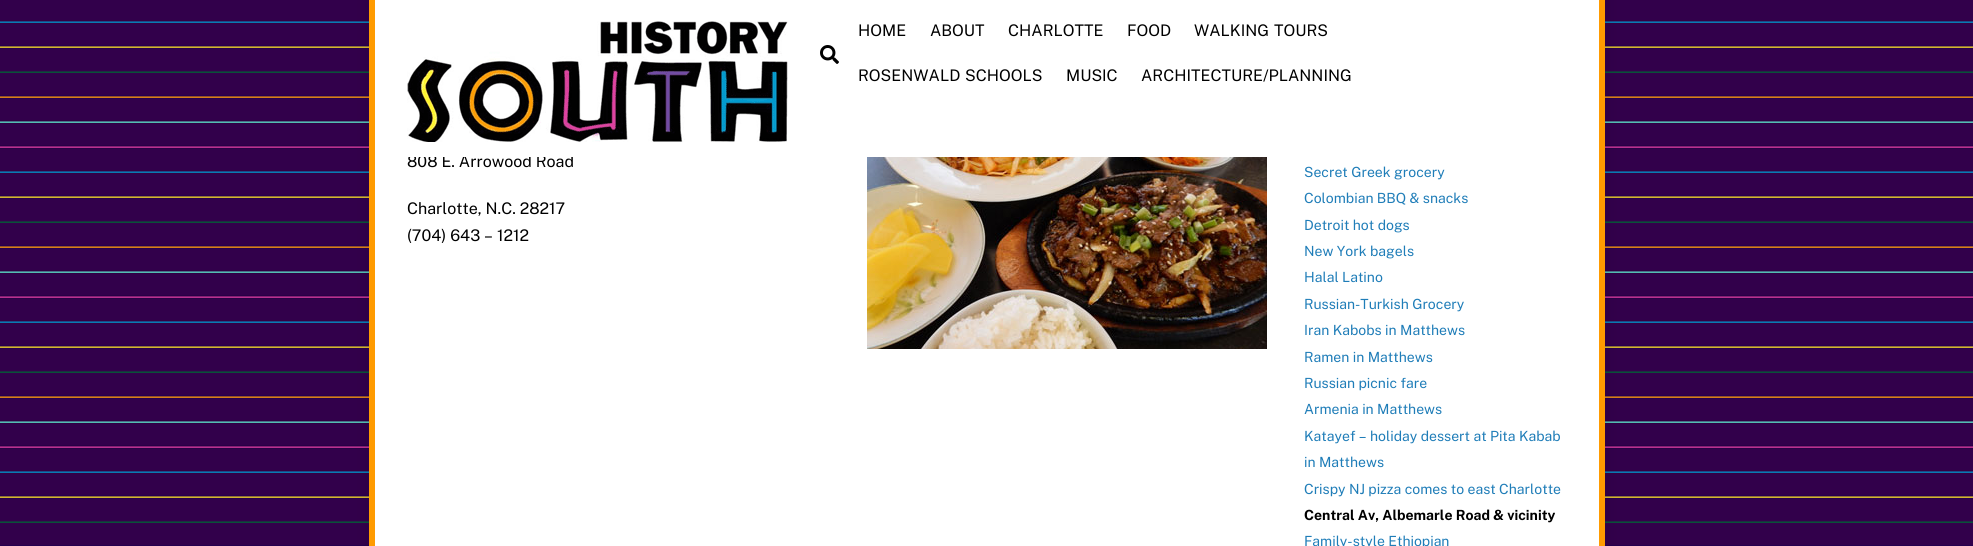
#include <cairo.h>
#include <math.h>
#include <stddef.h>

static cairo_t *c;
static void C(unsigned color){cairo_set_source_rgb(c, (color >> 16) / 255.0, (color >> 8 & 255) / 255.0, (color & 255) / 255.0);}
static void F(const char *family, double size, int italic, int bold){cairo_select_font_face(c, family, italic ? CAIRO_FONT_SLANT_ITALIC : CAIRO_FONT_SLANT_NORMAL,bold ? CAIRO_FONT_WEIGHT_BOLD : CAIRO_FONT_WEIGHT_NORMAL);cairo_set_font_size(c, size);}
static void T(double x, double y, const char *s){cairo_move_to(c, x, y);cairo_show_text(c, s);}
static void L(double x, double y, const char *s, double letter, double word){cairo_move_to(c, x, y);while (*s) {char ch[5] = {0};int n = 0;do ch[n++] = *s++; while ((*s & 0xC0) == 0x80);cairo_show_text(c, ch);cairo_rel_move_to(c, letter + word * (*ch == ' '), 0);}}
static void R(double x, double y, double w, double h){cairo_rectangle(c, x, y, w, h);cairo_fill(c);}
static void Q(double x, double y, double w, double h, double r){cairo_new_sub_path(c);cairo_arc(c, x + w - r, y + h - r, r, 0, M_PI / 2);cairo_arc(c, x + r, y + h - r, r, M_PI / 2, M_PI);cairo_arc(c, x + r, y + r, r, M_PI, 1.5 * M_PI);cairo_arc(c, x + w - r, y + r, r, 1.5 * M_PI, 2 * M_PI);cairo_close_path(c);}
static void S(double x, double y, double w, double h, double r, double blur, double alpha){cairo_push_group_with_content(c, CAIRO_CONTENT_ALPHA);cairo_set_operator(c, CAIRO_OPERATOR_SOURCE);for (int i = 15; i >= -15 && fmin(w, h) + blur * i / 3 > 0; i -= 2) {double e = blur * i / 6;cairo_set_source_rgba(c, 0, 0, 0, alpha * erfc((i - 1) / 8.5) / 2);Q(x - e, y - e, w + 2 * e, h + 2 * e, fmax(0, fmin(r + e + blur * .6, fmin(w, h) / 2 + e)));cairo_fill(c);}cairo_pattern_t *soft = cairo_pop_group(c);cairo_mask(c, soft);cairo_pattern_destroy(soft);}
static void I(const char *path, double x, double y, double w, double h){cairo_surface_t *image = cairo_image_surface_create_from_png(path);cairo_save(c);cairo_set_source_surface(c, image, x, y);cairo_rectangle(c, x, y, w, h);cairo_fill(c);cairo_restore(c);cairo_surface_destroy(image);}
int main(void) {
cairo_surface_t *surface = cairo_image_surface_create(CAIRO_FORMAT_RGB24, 1973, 546);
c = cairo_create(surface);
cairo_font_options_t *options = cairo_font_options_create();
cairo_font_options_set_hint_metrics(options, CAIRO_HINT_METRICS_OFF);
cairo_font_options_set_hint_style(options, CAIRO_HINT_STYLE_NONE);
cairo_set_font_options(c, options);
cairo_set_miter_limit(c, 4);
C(0xffffff);
cairo_paint(c);
I("1.png",0,0,1973,546);
C(0x000000);
S(369,-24,1236,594,0,8,.1);
C(0xffffff);
cairo_rectangle(c,372,-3,1230,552);
cairo_fill_preserve(c);
C(0xff9b00);
cairo_set_line_width(c,6);
cairo_stroke(c);
F("Public Sans",16,0,0);
C(0x000000);
T(407,167,"808 E. Arrowood Road");
C(0xffffff);
R(408,155,165,2);
I("2.png",407,21,381,121);
I("3.png",820,45,19,19);
C(0x000000);
T(858,36,"HOME");
T(930,36,"ABOUT");
T(1008,36,"CHARLOTTE");
T(1127,36,"FOOD");
L(1194,36,"WALKING TOURS",0,1);
L(858,81,"ROSENWALD SCHOOLS",0,1);
T(1066,81,"MUSIC");
T(1141,81,"ARCHITECTURE/PLANNING");
I("4.png",867,157,400,192);
T(407,214,"Charlotte, N.C. 28217");
T(407,241,"(704) 643 – 1212");
F("Public Sans",14,0,0);
C(0x1f7db8);
T(1304,177,"Secret Greek grocery");
T(1304,203,"Colombian BBQ & snacks");
T(1304,230,"Detroit hot dogs");
T(1304,256,"New York bagels");
T(1304,282,"Halal Latino");
T(1304,309,"Russian-Turkish Grocery");
T(1304,335,"Iran Kabobs in Matthews");
T(1304,362,"Ramen in Matthews");
T(1304,388,"Russian picnic fare");
T(1304,414,"Armenia in Matthews");
T(1304,441,"Katayef – holiday dessert at Pita Kabab");
T(1304,467,"in Matthews");
T(1304,494,"Crispy NJ pizza comes to east Charlotte");
F("Public Sans",14,0,1);
C(0x000000);
T(1304,520,"Central Av, Albemarle Road & vicinity");
F("Public Sans",14,0,0);
C(0x1f7db8);
T(1304,546,"Family-style Ethiopian");
C(0x32004b);
cairo_new_path(c);
cairo_move_to(c,1931.5,498);
cairo_line_to(c,1942,508.5);
cairo_line_to(c,1940.5,508.5);
cairo_line_to(c,1931.5,499.5);
cairo_close_path(c);
cairo_fill(c);
cairo_new_path(c);
cairo_move_to(c,1921,508.5);
cairo_line_to(c,1931.5,498);
cairo_line_to(c,1931.5,499.5);
cairo_line_to(c,1922.5,508.5);
cairo_close_path(c);
cairo_fill(c);
cairo_surface_write_to_png(surface, "o.png");
cairo_font_options_destroy(options);
cairo_destroy(c);
cairo_surface_destroy(surface);
return 0;
}
